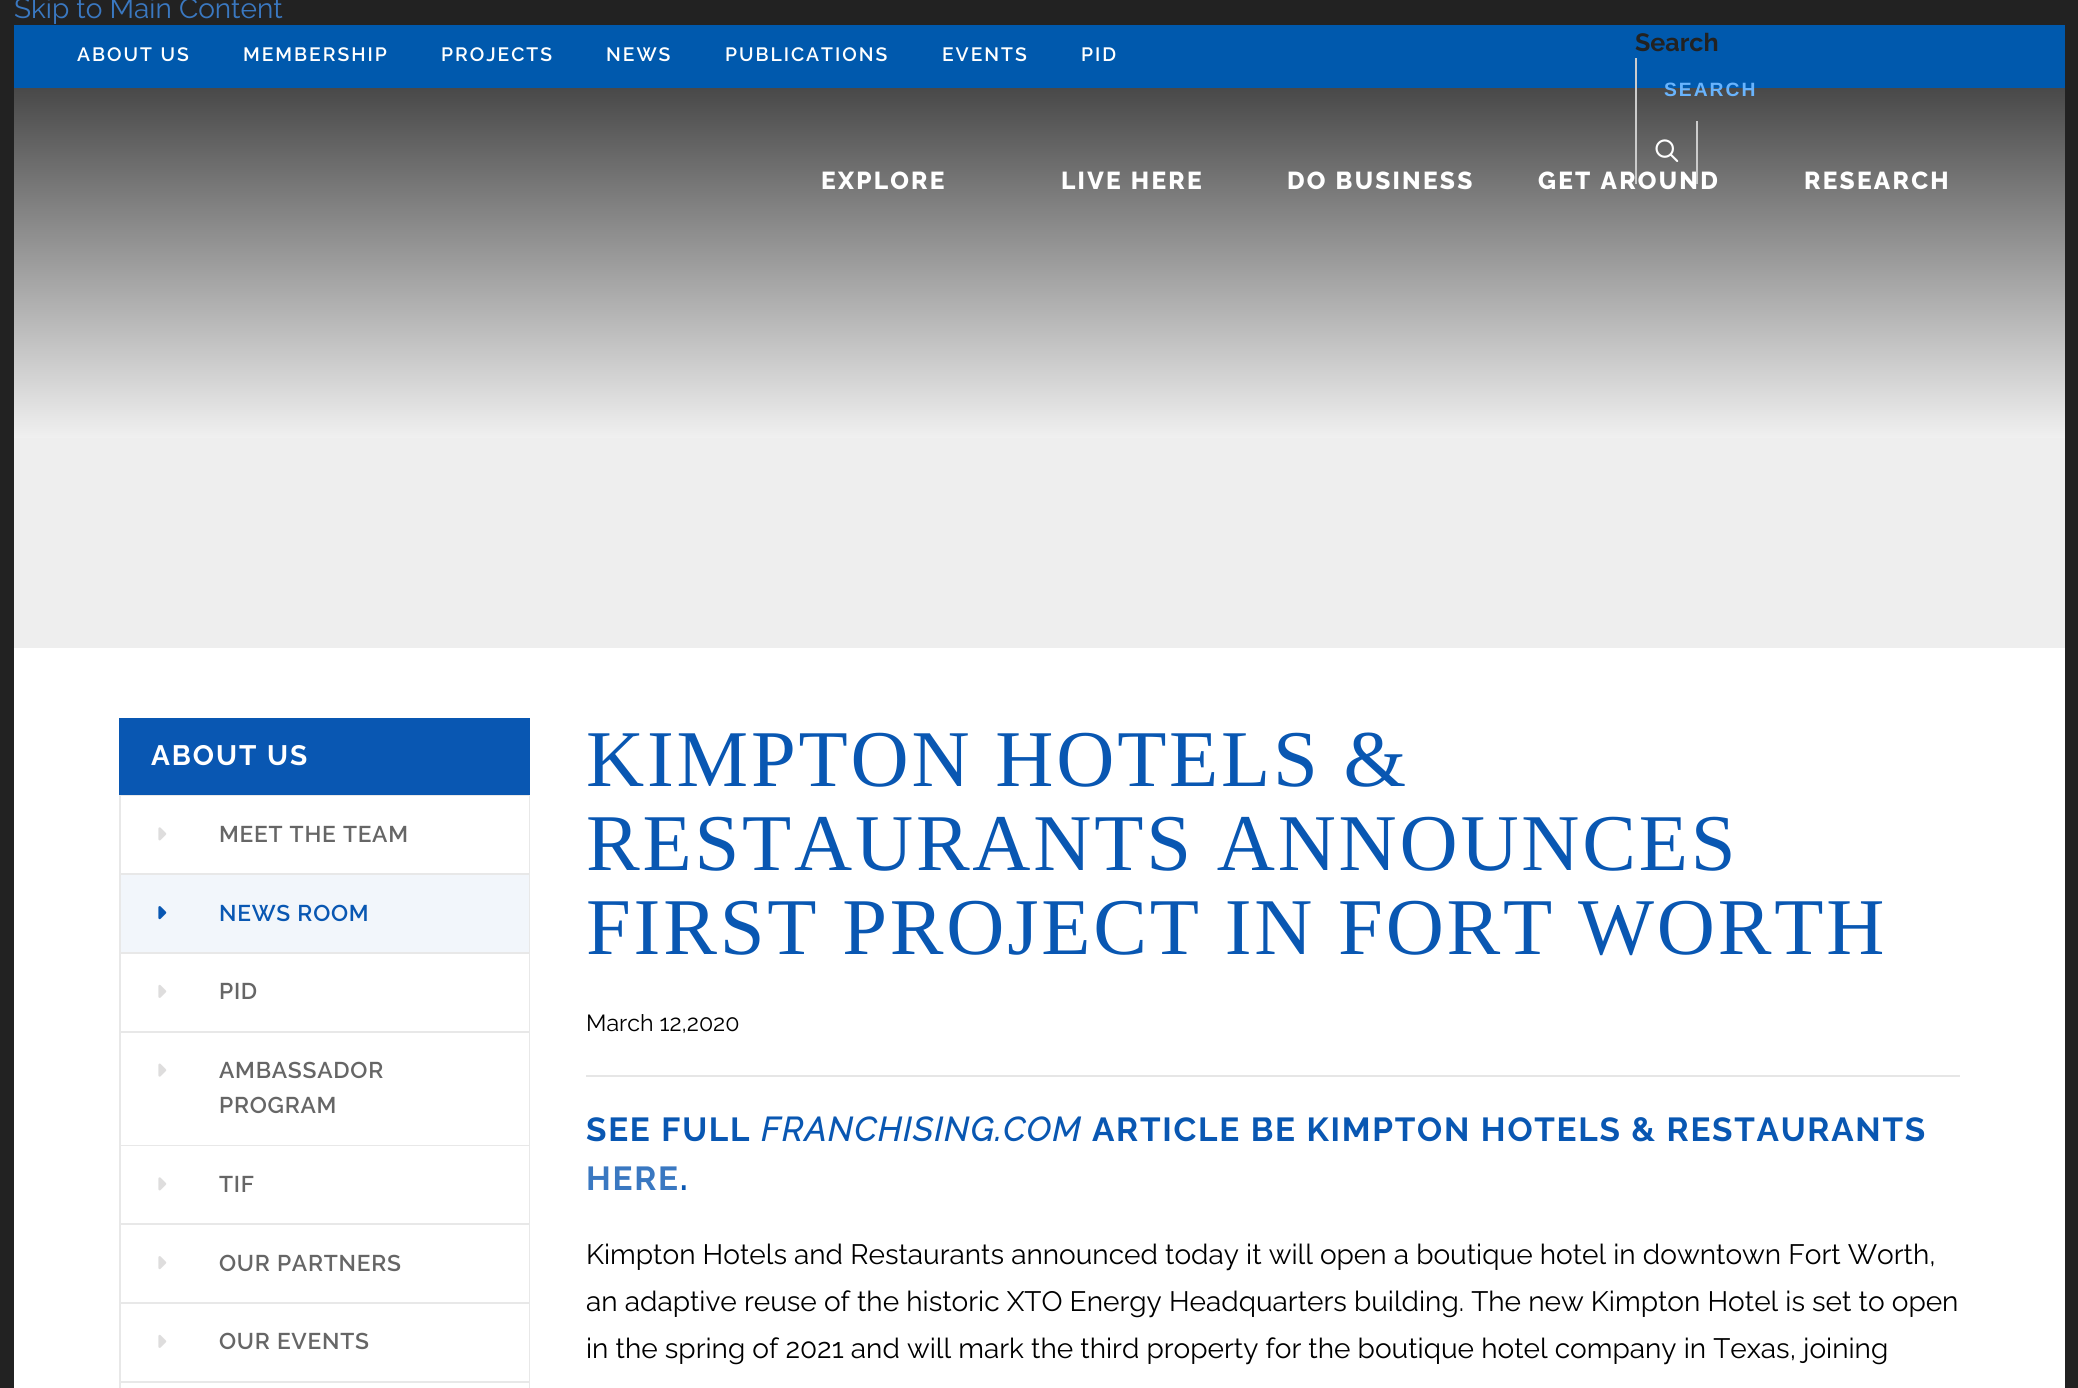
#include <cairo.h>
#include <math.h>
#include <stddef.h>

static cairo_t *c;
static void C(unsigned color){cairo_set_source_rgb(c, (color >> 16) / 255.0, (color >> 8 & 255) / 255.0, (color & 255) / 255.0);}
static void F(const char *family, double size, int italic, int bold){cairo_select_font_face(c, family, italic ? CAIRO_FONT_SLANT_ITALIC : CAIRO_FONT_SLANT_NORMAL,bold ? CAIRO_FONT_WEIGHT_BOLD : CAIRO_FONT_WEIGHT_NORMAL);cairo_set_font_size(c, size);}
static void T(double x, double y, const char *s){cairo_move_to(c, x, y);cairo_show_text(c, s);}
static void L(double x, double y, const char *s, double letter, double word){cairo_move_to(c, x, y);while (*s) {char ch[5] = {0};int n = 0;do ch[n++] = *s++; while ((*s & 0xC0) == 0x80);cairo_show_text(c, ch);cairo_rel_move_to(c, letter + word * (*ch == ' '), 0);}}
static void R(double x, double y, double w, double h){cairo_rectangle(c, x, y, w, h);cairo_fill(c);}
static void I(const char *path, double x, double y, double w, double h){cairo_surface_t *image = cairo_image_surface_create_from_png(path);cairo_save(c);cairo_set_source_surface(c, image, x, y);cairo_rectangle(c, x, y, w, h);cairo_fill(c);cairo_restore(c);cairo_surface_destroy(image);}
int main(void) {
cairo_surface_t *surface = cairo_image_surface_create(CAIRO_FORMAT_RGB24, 2078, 1388);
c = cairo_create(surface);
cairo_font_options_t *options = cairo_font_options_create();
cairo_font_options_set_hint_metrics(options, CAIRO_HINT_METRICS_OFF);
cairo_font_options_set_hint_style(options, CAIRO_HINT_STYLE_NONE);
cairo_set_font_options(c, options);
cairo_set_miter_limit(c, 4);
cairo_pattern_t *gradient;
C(0x222222);
cairo_paint(c);
F("Raleway",28,0,0);
C(0x3a78c1);
T(14,18,"Skip to Main Content");
C(0xffffff);
R(14,648,2051,740);
C(0x0059ad);
R(14,25,2051,63);
F("Raleway SemiBold",19.25,0,0);
C(0xffffff);
L(77,61,"ABOUT US",2,0);
L(243,61,"MEMBERSHIP",2,0);
L(441,61,"PROJECTS",2,0);
L(606,61,"NEWS",2,0);
L(725,61,"PUBLICATIONS",2,0);
L(942,61,"EVENTS",2,0);
L(1081,61,"PID",2,0);
F("Raleway",25,0,1);
C(0x222222);
T(1635,51,"Search");
gradient = cairo_pattern_create_linear(1040,87,1040,438);
cairo_pattern_add_color_stop_rgba(gradient,0,0.282,0.282,0.282,1);
cairo_pattern_add_color_stop_rgba(gradient,1,0.941,0.941,0.941,1);
cairo_set_source(c,gradient);
cairo_pattern_destroy(gradient);
R(14,88,2051,350);
F("Raleway ExtraBold",24.5,0,0);
C(0xffffff);
L(1538,189,"GET AROUND",2.25,0);
C(0xcccccc);
R(1635,58,2,126);
F("Liberation Sans",19.25,0,1);
C(0x69b4fd);
L(1664,96,"SEARCH",2,0);
C(0xcccccc);
R(1696,121,2,63);
I("1.png",1655,139,24,23);
F("Raleway ExtraBold",24.5,0,0);
C(0xffffff);
L(821,189,"EXPLORE",2.25,0);
L(1061,189,"LIVE HERE",2.25,0);
L(1287,189,"DO BUSINESS",2.25,0);
L(1804,189,"RESEARCH",2.25,0);
C(0xeeeeee);
R(14,438,2051,210);
C(0x0957b2);
R(119,718,411,77);
F("Raleway",28,0,1);
C(0xffffff);
L(151,765,"ABOUT US",2,0);
cairo_rectangle(c,120,796,409,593);
C(0xe8e8e8);
cairo_stroke(c);
R(121,873,408,2);
C(0xffffff);
R(121,796,408,77);
I("2.png",158,827,9,14);
F("Raleway SemiBold",22.75,0,0);
C(0x666666);
L(219,842,"MEET THE TEAM",.75,0);
C(0xe8e8e8);
R(121,952,408,2);
C(0xf2f6fb);
R(121,875,408,77);
I("3.png",158,906,9,14);
C(0x0957b2);
L(219,921,"NEWS ROOM",.75,0);
C(0xe8e8e8);
R(121,1031,408,2);
C(0xffffff);
R(528,954,1,77);
I("4.png",158,984,9,14);
C(0x666666);
L(219,999,"PID",.75,0);
C(0xe8e8e8);
R(121,1145,408,1);
C(0xffffff);
R(528,1033,1,112);
I("5.png",158,1063,9,14);
C(0x666666);
L(219,1078,"AMBASSADOR",.75,0);
L(219,1113,"PROGRAM",.75,0);
C(0xe8e8e8);
R(121,1223,408,2);
C(0xffffff);
R(528,1146,1,77);
I("2.png",158,1177,9,14);
C(0x666666);
L(219,1192,"TIF",.75,0);
C(0xe8e8e8);
R(121,1302,408,2);
C(0xffffff);
R(528,1225,1,77);
I("6.png",158,1256,9,14);
C(0x666666);
L(219,1271,"OUR PARTNERS",.75,0);
C(0xe8e8e8);
R(121,1381,408,2);
C(0xffffff);
R(528,1304,1,77);
I("4.png",158,1334,9,14);
C(0x666666);
L(219,1349,"OUR EVENTS",.75,0);
C(0xffffff);
R(528,1383,1,5);
F("Liberation Serif",80.5,0,0);
C(0x0957b2);
L(586,786,"KIMPTON HOTELS &",2.8,0);
L(586,870,"RESTAURANTS ANNOUNCES",2.8,0);
L(586,954,"FIRST PROJECT IN FORT WORTH",2.8,0);
F("Raleway",23.25,0,0);
C(0x000000);
T(586,1031,"March 12,2020");
C(0xe6e6e6);
R(586,1075,1374,2);
F("Raleway",33.25,0,1);
C(0x0957b2);
L(586,1141,"SEE FULL",1.75,0);
F("Raleway",33.25,1,1);
L(761,1141,"FRANCHISING.COM",1.75,0);
F("Raleway",33.25,0,1);
L(1092,1141,"ARTICLE BE KIMPTON HOTELS & RESTAURANTS",1.75,0);
C(0x3a78c1);
L(586,1190,"HERE",1.75,0);
C(0x0957b2);
L(680,1190,".",1.75,0);
F("Raleway",28,0,0);
C(0x000000);
T(586,1264,"Kimpton Hotels and Restaurants announced today it will open a boutique hotel in downtown Fort Worth,");
T(586,1311,"an adaptive reuse of the historic XTO Energy Headquarters building. The new Kimpton Hotel is set to open");
T(586,1358,"in the spring of 2021 and will mark the third property for the boutique hotel company in Texas, joining");
cairo_surface_write_to_png(surface, "o.png");
cairo_font_options_destroy(options);
cairo_destroy(c);
cairo_surface_destroy(surface);
return 0;
}
